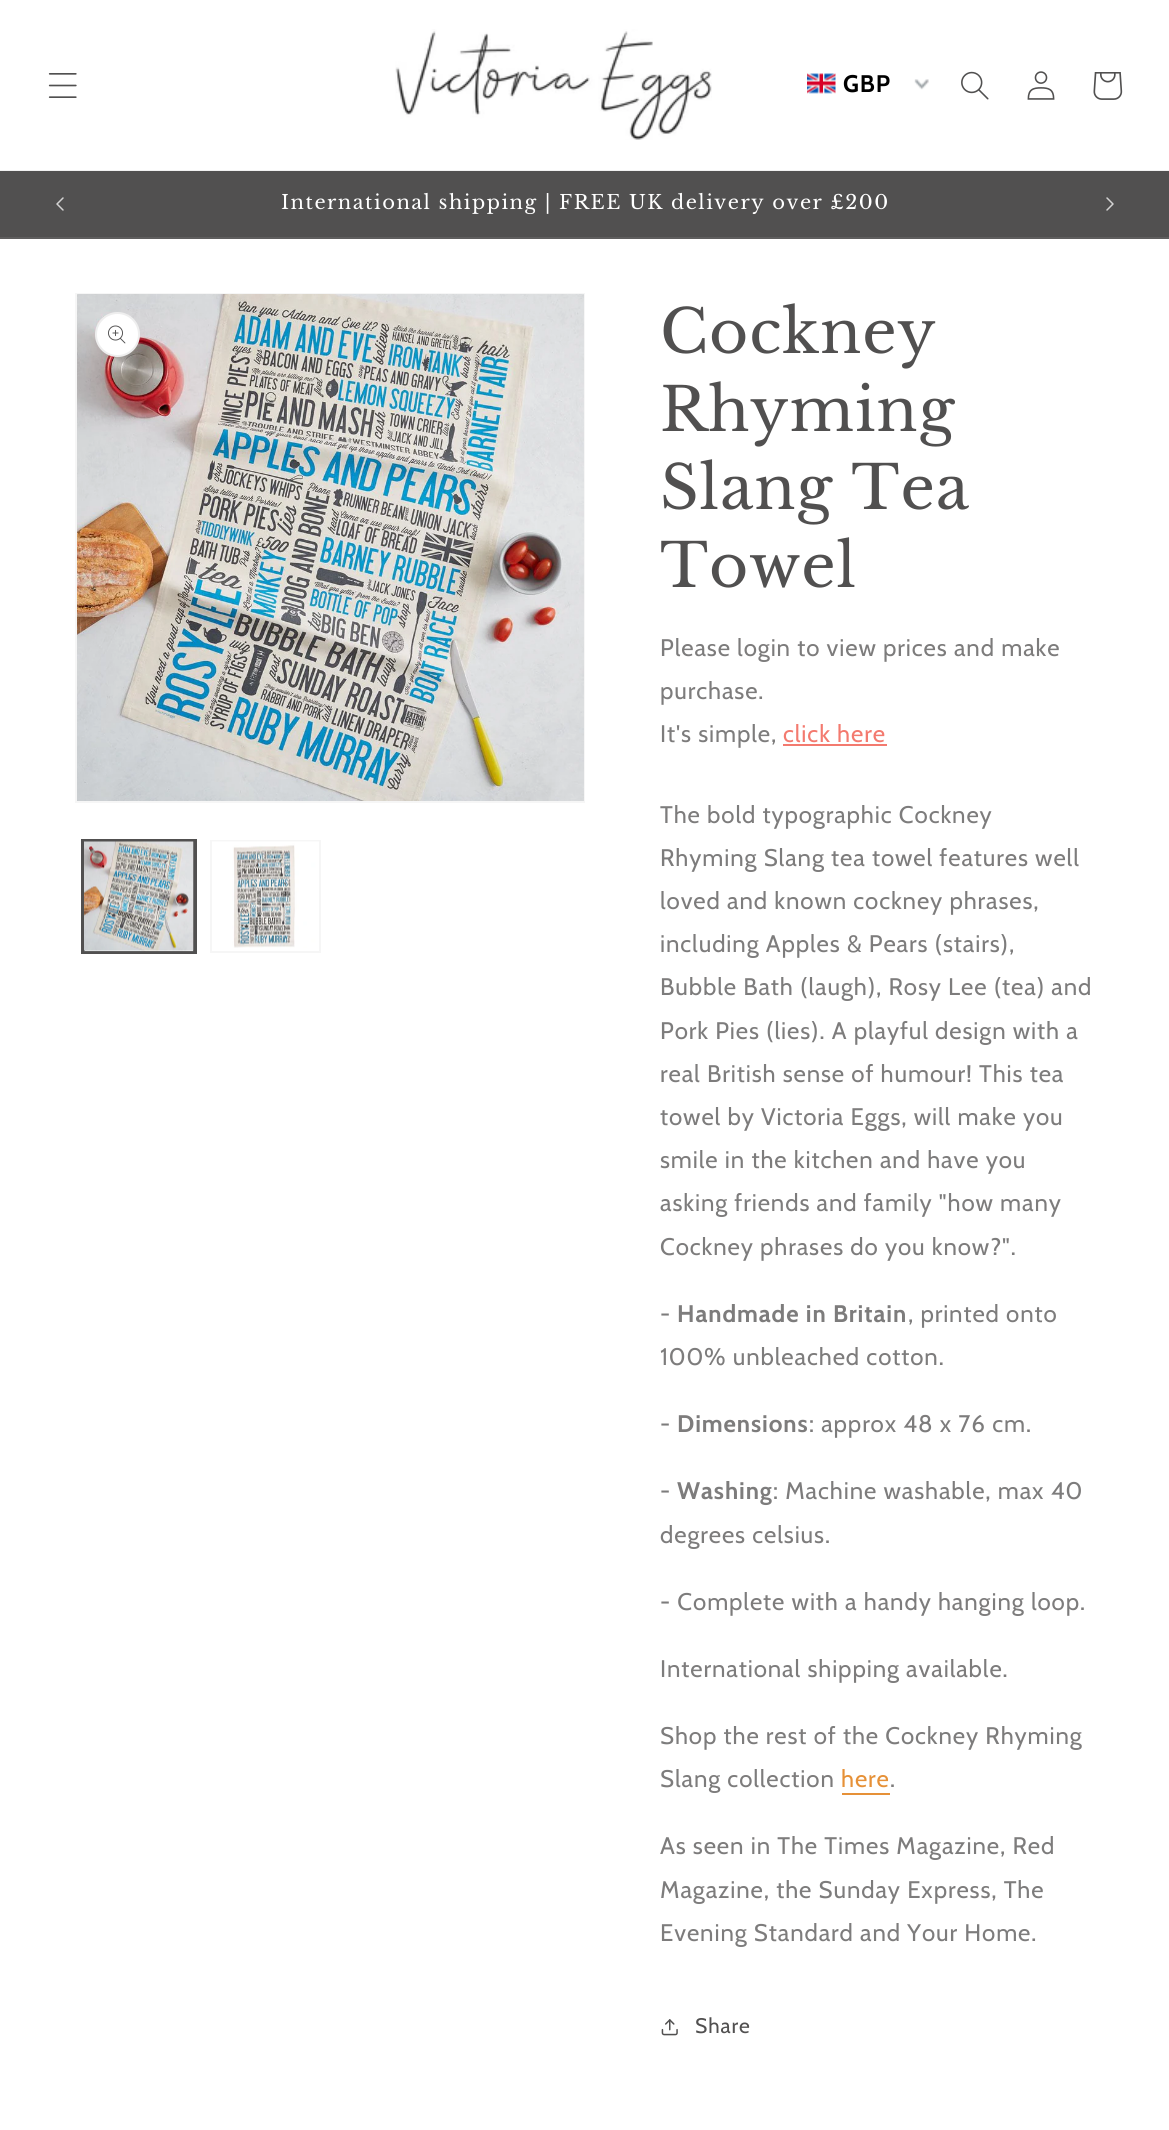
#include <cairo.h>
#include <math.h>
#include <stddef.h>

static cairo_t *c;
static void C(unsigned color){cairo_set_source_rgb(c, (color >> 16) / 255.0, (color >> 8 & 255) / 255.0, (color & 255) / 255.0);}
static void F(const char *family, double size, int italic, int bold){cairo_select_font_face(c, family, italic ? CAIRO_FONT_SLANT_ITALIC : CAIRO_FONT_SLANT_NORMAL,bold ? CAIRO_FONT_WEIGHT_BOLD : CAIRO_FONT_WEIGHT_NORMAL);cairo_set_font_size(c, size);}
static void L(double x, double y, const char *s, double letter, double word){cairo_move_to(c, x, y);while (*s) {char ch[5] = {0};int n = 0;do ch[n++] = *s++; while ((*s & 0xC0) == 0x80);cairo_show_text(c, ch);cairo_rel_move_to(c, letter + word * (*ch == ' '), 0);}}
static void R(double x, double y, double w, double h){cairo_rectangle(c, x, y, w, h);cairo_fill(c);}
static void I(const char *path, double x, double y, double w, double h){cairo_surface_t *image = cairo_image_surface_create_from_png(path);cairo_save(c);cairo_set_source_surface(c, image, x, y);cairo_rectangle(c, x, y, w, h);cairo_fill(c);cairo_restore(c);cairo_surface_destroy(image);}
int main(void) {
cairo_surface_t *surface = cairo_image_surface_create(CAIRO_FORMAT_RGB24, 1169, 2130);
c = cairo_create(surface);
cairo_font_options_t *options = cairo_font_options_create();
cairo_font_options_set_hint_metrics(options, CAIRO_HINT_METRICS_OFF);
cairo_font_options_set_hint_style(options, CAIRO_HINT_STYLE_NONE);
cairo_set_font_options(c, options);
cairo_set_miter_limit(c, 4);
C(0xffffff);
cairo_paint(c);
C(0xf1f1f1);
R(0,170,1169,1);
I("1.png",48,73,29,25);
I("2.png",395,29,317,111);
I("3.png",807,73,29,21);
F("Cabin",24,0,1);
C(0x000000);
L(843,92,"GBP",.9,0);
I("4.png",914,79,15,11);
I("5.png",961,71,28,29);
I("6.png",1027,71,28,29);
I("7.png",1093,72,30,28);
C(0x515050);
R(0,171,1169,66);
C(0x5f5e5e);
R(0,237,1169,2);
I("8.png",56,197,8,14);
F("Libre Baskerville",19.5,0,0);
C(0xffffff);
L(281,209,"International shipping | FREE UK delivery over £200",1.5,0);
I("9.png",1106,197,8,14);
cairo_rectangle(c,76,294,508,508);
C(0xf6f6f6);
cairo_stroke(c);
I("10.png",77,294,507,507);
C(0xffffff);
cairo_arc(c,117.5,334.5,22.5,0,2 * M_PI);
cairo_fill(c);
cairo_arc(c,117.5,334.5,21.5,0,2 * M_PI);
cairo_set_source_rgba(c,0.318,0.314,0.314,0.1);
cairo_stroke(c);
I("11.png",108,325,18,19);
cairo_rectangle(c,82,840,114,113);
C(0x515050);
cairo_stroke(c);
cairo_rectangle(c,84,841,110,111);
cairo_stroke(c);
I("12.png",84,841,110,111);
cairo_rectangle(c,211,841,109,111);
C(0xf6f6f6);
cairo_stroke(c);
I("13.png",212,841,107,107);
F("Libre Baskerville",60,0,0);
C(0x515050);
L(660,353,"Cockney",.9,0);
L(660,431,"Rhyming",.9,0);
L(660,509,"Slang Tea",.9,0);
L(660,587,"Towel",.9,0);
F("Cabin",24,0,0);
C(0x7d7c7c);
L(660,656,"Please login to view prices and make",.9,0);
L(660,699,"purchase.",.9,0);
L(660,742,"It's simple,",.9,0);
C(0xf37a6f);
L(783,742,"click here",.9,0);
R(783,744,104,2);
C(0x7d7c7c);
L(660,823,"The bold typographic Cockney",.9,0);
L(660,866,"Rhyming Slang tea towel features well",.9,0);
L(660,909,"loved and known cockney phrases,",.9,0);
L(660,952,"including Apples & Pears (stairs),",.9,0);
L(660,995,"Bubble Bath (laugh), Rosy Lee (tea) and",.9,0);
L(660,1039,"Pork Pies (lies). A playful design with a",.9,0);
L(660,1082,"real British sense of humour! This tea",.9,0);
L(660,1125,"towel by Victoria Eggs, will make you",.9,0);
L(660,1168,"smile in the kitchen and have you",.9,0);
L(660,1211,"asking friends and family \"how many",.9,0);
L(660,1255,"Cockney phrases do you know?\".",.9,0);
L(660,1322,"-",.9,0);
F("Cabin",24,0,1);
L(677,1322,"Handmade in Britain",.9,0);
F("Cabin",24,0,0);
L(908,1322,", printed onto",.9,0);
L(660,1365,"100% unbleached cotton.",.9,0);
L(660,1432,"-",.9,0);
F("Cabin",24,0,1);
L(677,1432,"Dimensions",.9,0);
F("Cabin",24,0,0);
L(809,1432,": approx 48 x 76 cm.",.9,0);
L(660,1499,"-",.9,0);
F("Cabin",24,0,1);
L(677,1499,"Washing",.9,0);
F("Cabin",24,0,0);
L(773,1499,": Machine washable, max 40",.9,0);
L(660,1543,"degrees celsius.",.9,0);
L(660,1610,"- Complete with a handy hanging loop.",.9,0);
L(660,1677,"International shipping available.",.9,0);
L(660,1744,"Shop the rest of the Cockney Rhyming",.9,0);
L(660,1787,"Slang collection",.9,0);
C(0xe69138);
L(841,1787,"here",.9,0);
R(842,1793,48,2);
C(0x7d7c7c);
L(890,1787,".",.9,0);
L(660,1854,"As seen in The Times Magazine, Red",.9,0);
L(660,1898,"Magazine, the Sunday Express, The",.9,0);
L(660,1941,"Evening Standard and Your Home.",.9,0);
I("14.png",661,2019,17,17);
F("Cabin",21,0,0);
C(0x515050);
L(695,2033,"Share",.9,0);
cairo_surface_write_to_png(surface, "o.png");
cairo_font_options_destroy(options);
cairo_destroy(c);
cairo_surface_destroy(surface);
return 0;
}
